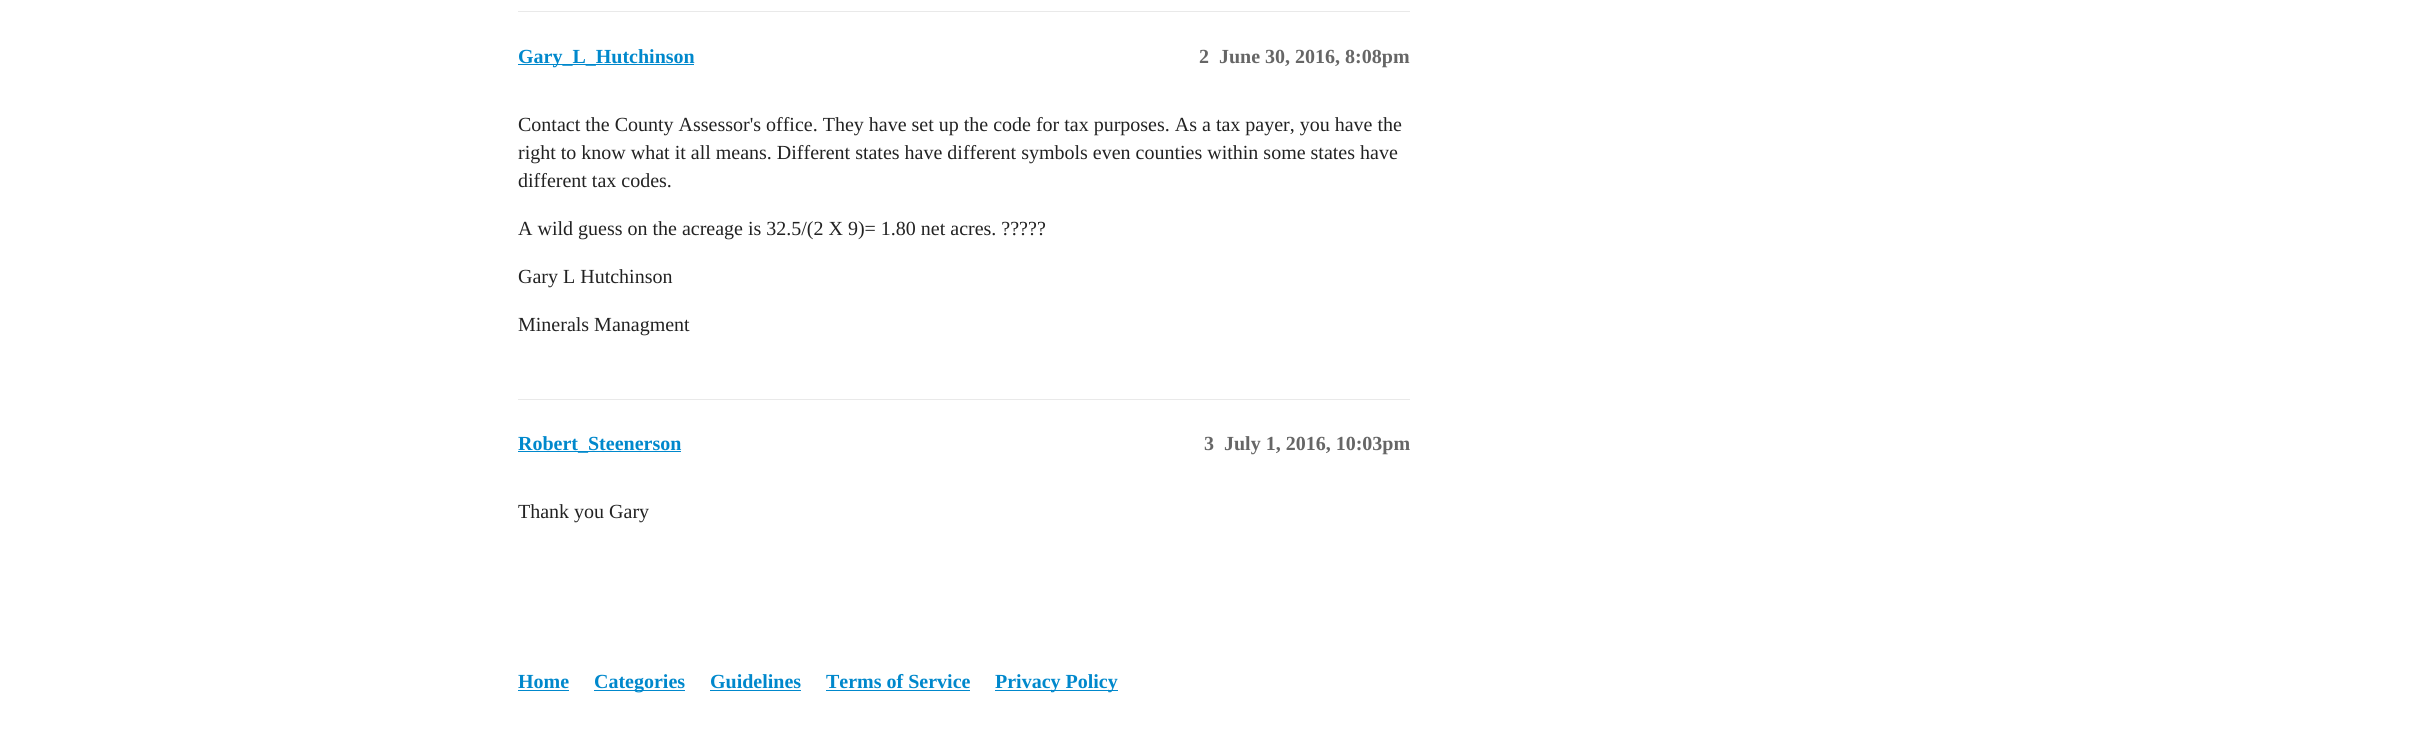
#include <cairo.h>
#include <math.h>
#include <stddef.h>

static cairo_t *c;
static void C(unsigned color){cairo_set_source_rgb(c, (color >> 16) / 255.0, (color >> 8 & 255) / 255.0, (color & 255) / 255.0);}
static void F(const char *family, double size, int italic, int bold){cairo_select_font_face(c, family, italic ? CAIRO_FONT_SLANT_ITALIC : CAIRO_FONT_SLANT_NORMAL,bold ? CAIRO_FONT_WEIGHT_BOLD : CAIRO_FONT_WEIGHT_NORMAL);cairo_set_font_size(c, size);}
static void T(double x, double y, const char *s){cairo_move_to(c, x, y);cairo_show_text(c, s);}
static void R(double x, double y, double w, double h){cairo_rectangle(c, x, y, w, h);cairo_fill(c);}
int main(void) {
cairo_surface_t *surface = cairo_image_surface_create(CAIRO_FORMAT_RGB24, 2422, 741);
c = cairo_create(surface);
cairo_font_options_t *options = cairo_font_options_create();
cairo_font_options_set_hint_metrics(options, CAIRO_HINT_METRICS_OFF);
cairo_font_options_set_hint_style(options, CAIRO_HINT_STYLE_NONE);
cairo_set_font_options(c, options);
cairo_set_miter_limit(c, 4);
C(0xffffff);
cairo_paint(c);
C(0xe9e9e9);
R(518,11,892,1);
C(0x0088cc);
R(518,64,176,1);
F("Liberation Serif",20,0,1);
T(518,63,"Gary_L_Hutchinson");
C(0x666666);
T(1199,63,"2");
T(1219,63,"June 30, 2016, 8:08pm");
F("Liberation Serif",20,0,0);
C(0x222222);
T(518,131,"Contact the County Assessor's office. They have set up the code for tax purposes. As a tax payer, you have the");
T(518,159,"right to know what it all means. Different states have different symbols even counties within some states have");
T(518,187,"different tax codes.");
T(518,235,"A wild guess on the acreage is 32.5/(2 X 9)= 1.80 net acres. ?\077?\077?");
T(518,283,"Gary L Hutchinson");
T(518,331,"Minerals Managment");
C(0xe9e9e9);
R(518,399,892,1);
C(0x0088cc);
R(518,451,163,1);
F("Liberation Serif",20,0,1);
T(518,450,"Robert_Steenerson");
C(0x666666);
T(1204,450,"3");
T(1224,450,"July 1, 2016, 10:03pm");
cairo_save(c);
cairo_rectangle(c,518,478,892,68);
cairo_clip(c);
F("Liberation Serif",20,0,0);
C(0x222222);
T(518,518,"Thank you Gary");
cairo_restore(c);
C(0x0088cc);
T(518,688,"Home");
R(518,690,51,1);
R(594,690,91,1);
T(594,688,"Categories");
T(710,688,"Guidelines");
R(710,690,91,1);
T(826,688,"Terms of Service");
R(826,690,144,1);
R(995,690,123,1);
T(995,688,"Privacy Policy");
cairo_surface_write_to_png(surface, "o.png");
cairo_font_options_destroy(options);
cairo_destroy(c);
cairo_surface_destroy(surface);
return 0;
}
